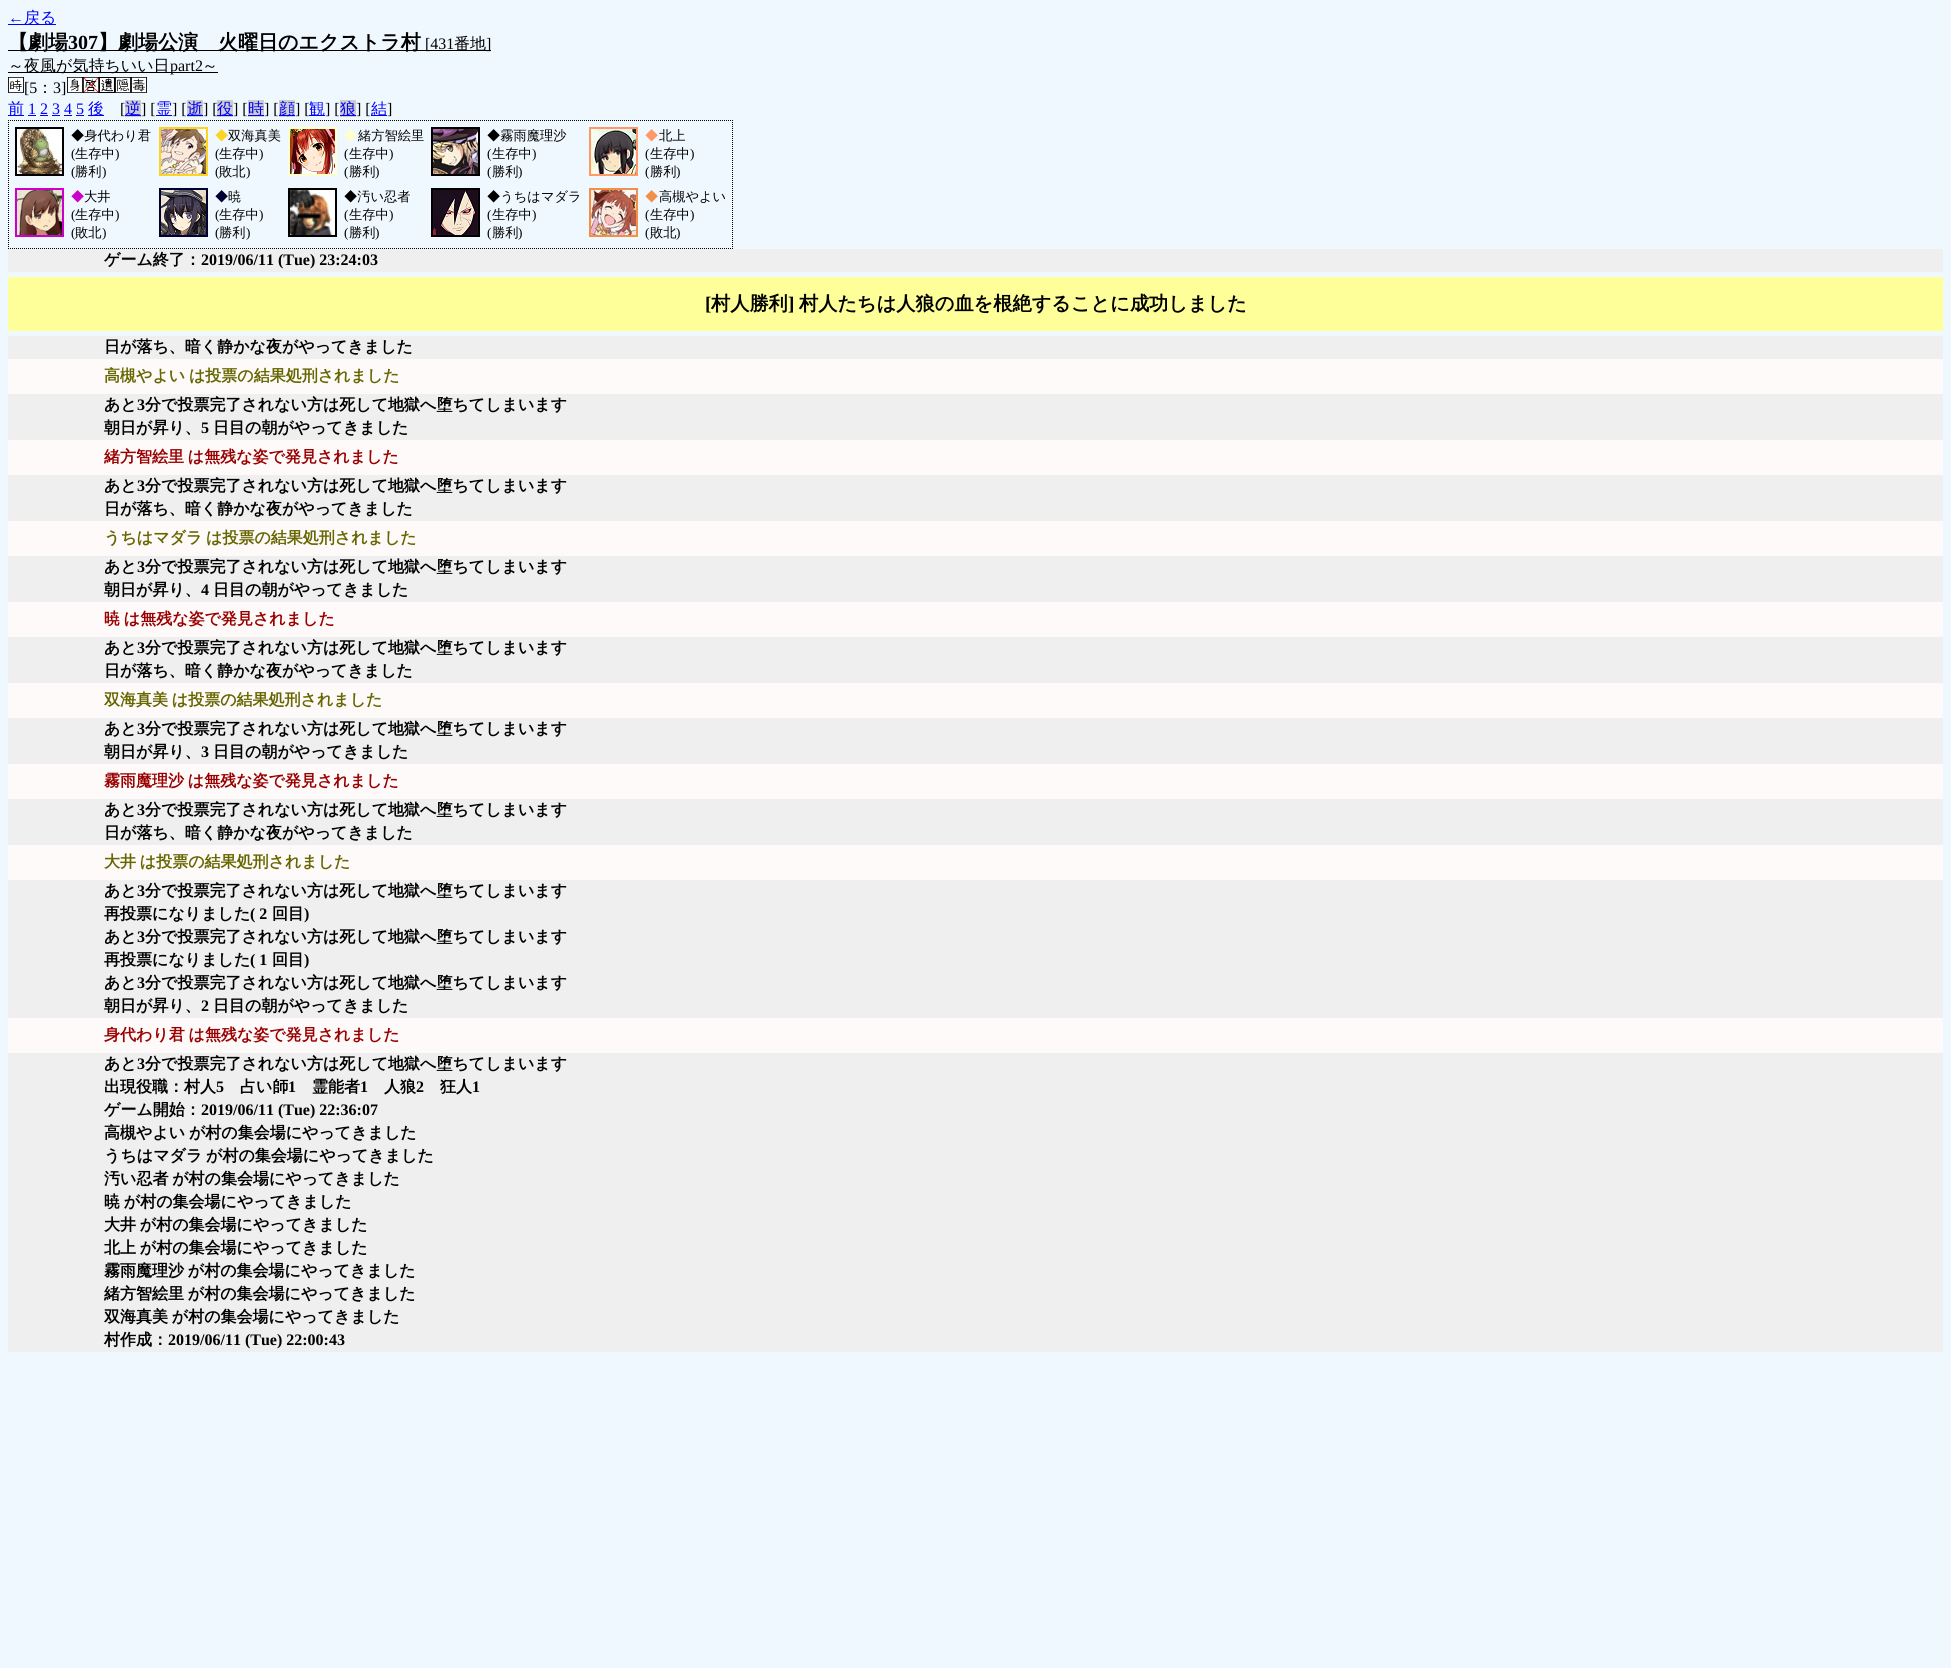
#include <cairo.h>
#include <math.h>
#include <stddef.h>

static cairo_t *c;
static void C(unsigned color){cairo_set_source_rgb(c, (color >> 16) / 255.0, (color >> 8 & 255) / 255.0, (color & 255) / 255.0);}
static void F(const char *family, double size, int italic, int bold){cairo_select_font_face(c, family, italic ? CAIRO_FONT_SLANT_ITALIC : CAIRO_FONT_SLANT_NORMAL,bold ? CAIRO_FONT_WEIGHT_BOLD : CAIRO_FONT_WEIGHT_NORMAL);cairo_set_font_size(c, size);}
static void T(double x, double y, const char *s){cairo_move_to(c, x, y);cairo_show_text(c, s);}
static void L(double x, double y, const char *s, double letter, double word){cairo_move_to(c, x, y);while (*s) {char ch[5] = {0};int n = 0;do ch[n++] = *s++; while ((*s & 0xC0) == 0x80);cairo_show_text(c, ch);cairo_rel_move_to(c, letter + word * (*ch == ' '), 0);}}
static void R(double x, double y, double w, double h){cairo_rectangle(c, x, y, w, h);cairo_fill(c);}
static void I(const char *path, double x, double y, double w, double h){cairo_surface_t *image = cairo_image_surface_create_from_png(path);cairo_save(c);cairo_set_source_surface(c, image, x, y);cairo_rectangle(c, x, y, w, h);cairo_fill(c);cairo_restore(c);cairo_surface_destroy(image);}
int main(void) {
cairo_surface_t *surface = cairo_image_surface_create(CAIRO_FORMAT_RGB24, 1951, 1668);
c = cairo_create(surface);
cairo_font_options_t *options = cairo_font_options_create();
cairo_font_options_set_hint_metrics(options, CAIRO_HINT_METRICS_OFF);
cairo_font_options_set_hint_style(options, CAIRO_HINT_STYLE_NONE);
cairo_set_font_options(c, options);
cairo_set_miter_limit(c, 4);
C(0xf0f8ff);
cairo_paint(c);
F("Liberation Serif",16,0,0);
C(0x0000ff);
T(8,23,"←");
R(8,24,48,1);
F("WenQuanYi Zen Hei Medium",16,0,0);
T(24,23,"戻る");
C(0x000000);
R(8,50,483,1);
F("WenQuanYi Zen Hei",20,0,1);
T(8,49,"【劇場");
F("Liberation Serif",20,0,1);
T(68,49,"307");
F("WenQuanYi Zen Hei",20,0,1);
T(98,49,"】劇場公演　火曜日のエクストラ村");
F("Liberation Serif",16,0,0);
T(425,49,"[431");
F("WenQuanYi Zen Hei Medium",16,0,0);
T(454,49,"番地");
F("Liberation Serif",16,0,0);
T(486,49,"]");
R(8,72,210,1);
F("WenQuanYi Zen Hei Medium",16,0,0);
T(8,71,"～夜風が気持ちいい日");
F("Liberation Serif",16,0,0);
T(170,71,"part2");
F("WenQuanYi Zen Hei Medium",16,0,0);
T(202,71,"～");
I("1.png",8,77,16,16);
F("Liberation Serif",16,0,0);
T(24,93,"[5");
F("WenQuanYi Zen Hei Medium",16,0,0);
T(37,93,"：");
F("Liberation Serif",16,0,0);
T(53,93,"3]");
I("2.png",67,77,16,16);
I("3.png",83,77,16,16);
I("4.png",99,77,16,16);
I("5.png",115,77,16,16);
I("6.png",131,77,16,16);
C(0x0000ff);
R(8,115,16,1);
F("WenQuanYi Zen Hei Medium",16,0,0);
T(8,114,"前");
F("Liberation Serif",16,0,0);
T(28,114,"1 2 3 4 5");
R(28,115,8,1);
R(88,115,16,1);
F("WenQuanYi Zen Hei Medium",16,0,0);
T(88,114,"後");
F("Liberation Serif",16,0,0);
C(0x000000);
T(120,114,"[");
C(0xcccccc);
R(125,100,16,17);
C(0x0000ff);
R(125,115,16,1);
F("WenQuanYi Zen Hei Medium",16,0,0);
T(125,114,"逆");
F("Liberation Serif",16,0,0);
C(0x000000);
T(141,114,"] [");
C(0x0000ff);
R(156,115,16,1);
F("WenQuanYi Zen Hei Medium",16,0,0);
T(156,114,"霊");
F("Liberation Serif",16,0,0);
C(0x000000);
T(172,114,"] [");
C(0xcccccc);
R(187,100,16,17);
C(0x0000ff);
R(187,115,16,1);
F("WenQuanYi Zen Hei Medium",16,0,0);
T(187,114,"逝");
F("Liberation Serif",16,0,0);
C(0x000000);
T(203,114,"] [");
C(0xcccccc);
R(217,100,16,17);
C(0x0000ff);
R(217,115,16,1);
F("WenQuanYi Zen Hei Medium",16,0,0);
T(217,114,"役");
F("Liberation Serif",16,0,0);
C(0x000000);
T(233,114,"] [");
C(0xcccccc);
R(248,100,16,17);
C(0x0000ff);
R(248,115,16,1);
F("WenQuanYi Zen Hei Medium",16,0,0);
T(248,114,"時");
F("Liberation Serif",16,0,0);
C(0x000000);
T(264,114,"] [");
C(0xcccccc);
R(279,100,16,17);
C(0x0000ff);
R(279,115,16,1);
F("WenQuanYi Zen Hei Medium",16,0,0);
T(279,114,"顔");
F("Liberation Serif",16,0,0);
C(0x000000);
T(295,114,"] [");
C(0x0000ff);
R(309,115,16,1);
F("WenQuanYi Zen Hei Medium",16,0,0);
T(309,114,"観");
F("Liberation Serif",16,0,0);
C(0x000000);
T(325,114,"] [");
C(0xcccccc);
R(340,100,16,17);
C(0x0000ff);
R(340,115,16,1);
F("WenQuanYi Zen Hei Medium",16,0,0);
T(340,114,"狼");
F("Liberation Serif",16,0,0);
C(0x000000);
T(356,114,"] [");
C(0x0000ff);
R(371,115,16,1);
F("WenQuanYi Zen Hei Medium",16,0,0);
T(371,114,"結");
F("Liberation Serif",16,0,0);
C(0x000000);
T(387,114,"]");
C(0x0000ff);
R(40,115,8,1);
R(52,115,8,1);
R(64,115,8,1);
R(76,115,8,1);
cairo_new_path(c);
cairo_move_to(c,8,120.5);
cairo_line_to(c,733,120.5);
C(0x000000);
cairo_set_line_width(c,1);
cairo_set_dash(c,(double[]){1,1},2,0);
cairo_stroke(c);
cairo_new_path(c);
cairo_move_to(c,732.5,120);
cairo_line_to(c,732.5,249);
cairo_stroke(c);
cairo_new_path(c);
cairo_move_to(c,8,248.5);
cairo_line_to(c,733,248.5);
cairo_stroke(c);
cairo_new_path(c);
cairo_move_to(c,8.5,120);
cairo_line_to(c,8.5,249);
cairo_stroke(c);
cairo_rectangle(c,16,128,47,47);
cairo_set_line_width(c,2);
cairo_set_dash(c,NULL,0,0);
cairo_stroke(c);
I("7.png",17,129,45,45);
F("WenQuanYi Zen Hei Medium",13.25,0,0);
T(71,140,"◆身代わり君");
F("Liberation Serif",13.25,0,0);
T(71,158,"(");
F("WenQuanYi Zen Hei Medium",13.25,0,0);
T(75,158,"生存中");
F("Liberation Serif",13.25,0,0);
T(115,158,")");
T(71,176,"(");
F("WenQuanYi Zen Hei Medium",13.25,0,0);
T(75,176,"勝利");
F("Liberation Serif",13.25,0,0);
T(102,176,")");
cairo_rectangle(c,160,128,47,47);
C(0xfcd424);
cairo_stroke(c);
I("8.png",161,129,45,45);
F("WenQuanYi Zen Hei Medium",13.25,0,0);
T(215,140,"◆");
C(0x000000);
T(228,140,"双海真美");
F("Liberation Serif",13.25,0,0);
T(215,158,"(");
F("WenQuanYi Zen Hei Medium",13.25,0,0);
T(219,158,"生存中");
F("Liberation Serif",13.25,0,0);
T(259,158,")");
T(215,176,"(");
F("WenQuanYi Zen Hei Medium",13.25,0,0);
T(219,176,"敗北");
F("Liberation Serif",13.25,0,0);
T(246,176,")");
cairo_rectangle(c,289,128,47,47);
C(0xffffcc);
cairo_stroke(c);
I("9.png",290,129,45,45);
F("WenQuanYi Zen Hei Medium",13.25,0,0);
T(344,140,"◆");
C(0x000000);
T(358,140,"緒方智絵里");
F("Liberation Serif",13.25,0,0);
T(344,158,"(");
F("WenQuanYi Zen Hei Medium",13.25,0,0);
T(349,158,"生存中");
F("Liberation Serif",13.25,0,0);
T(389,158,")");
T(344,176,"(");
F("WenQuanYi Zen Hei Medium",13.25,0,0);
T(349,176,"勝利");
F("Liberation Serif",13.25,0,0);
T(375,176,")");
cairo_rectangle(c,432,128,47,47);
cairo_stroke(c);
I("10.png",433,129,45,45);
F("WenQuanYi Zen Hei Medium",13.25,0,0);
T(487,140,"◆霧雨魔理沙");
F("Liberation Serif",13.25,0,0);
T(487,158,"(");
F("WenQuanYi Zen Hei Medium",13.25,0,0);
T(492,158,"生存中");
F("Liberation Serif",13.25,0,0);
T(532,158,")");
T(487,176,"(");
F("WenQuanYi Zen Hei Medium",13.25,0,0);
T(492,176,"勝利");
F("Liberation Serif",13.25,0,0);
T(518,176,")");
cairo_rectangle(c,590,128,47,47);
C(0xff9966);
cairo_stroke(c);
I("11.png",591,129,45,45);
F("WenQuanYi Zen Hei Medium",13.25,0,0);
T(645,140,"◆");
C(0x000000);
T(659,140,"北上");
F("Liberation Serif",13.25,0,0);
T(645,158,"(");
F("WenQuanYi Zen Hei Medium",13.25,0,0);
T(650,158,"生存中");
F("Liberation Serif",13.25,0,0);
T(690,158,")");
T(645,176,"(");
F("WenQuanYi Zen Hei Medium",13.25,0,0);
T(650,176,"勝利");
F("Liberation Serif",13.25,0,0);
T(676,176,")");
cairo_rectangle(c,16,189,47,47);
C(0xcc00cc);
cairo_stroke(c);
I("12.png",17,190,45,45);
F("WenQuanYi Zen Hei Medium",13.25,0,0);
T(71,201,"◆");
C(0x000000);
T(84,201,"大井");
F("Liberation Serif",13.25,0,0);
T(71,219,"(");
F("WenQuanYi Zen Hei Medium",13.25,0,0);
T(75,219,"生存中");
F("Liberation Serif",13.25,0,0);
T(115,219,")");
T(71,237,"(");
F("WenQuanYi Zen Hei Medium",13.25,0,0);
T(75,237,"敗北");
F("Liberation Serif",13.25,0,0);
T(102,237,")");
cairo_rectangle(c,160,189,47,47);
C(0x000033);
cairo_stroke(c);
I("13.png",161,190,45,45);
F("WenQuanYi Zen Hei Medium",13.25,0,0);
T(215,201,"◆");
C(0x000000);
T(228,201,"暁");
F("Liberation Serif",13.25,0,0);
T(215,219,"(");
F("WenQuanYi Zen Hei Medium",13.25,0,0);
T(219,219,"生存中");
F("Liberation Serif",13.25,0,0);
T(259,219,")");
T(215,237,"(");
F("WenQuanYi Zen Hei Medium",13.25,0,0);
T(219,237,"勝利");
F("Liberation Serif",13.25,0,0);
T(246,237,")");
cairo_rectangle(c,289,189,47,47);
cairo_stroke(c);
I("14.png",290,190,45,45);
F("WenQuanYi Zen Hei Medium",13.25,0,0);
T(344,201,"◆汚い忍者");
F("Liberation Serif",13.25,0,0);
T(344,219,"(");
F("WenQuanYi Zen Hei Medium",13.25,0,0);
T(349,219,"生存中");
F("Liberation Serif",13.25,0,0);
T(389,219,")");
T(344,237,"(");
F("WenQuanYi Zen Hei Medium",13.25,0,0);
T(349,237,"勝利");
F("Liberation Serif",13.25,0,0);
T(375,237,")");
cairo_rectangle(c,432,189,47,47);
cairo_stroke(c);
I("15.png",433,190,45,45);
F("WenQuanYi Zen Hei Medium",13.25,0,0);
T(487,201,"◆うちはマダラ");
F("Liberation Serif",13.25,0,0);
T(487,219,"(");
F("WenQuanYi Zen Hei Medium",13.25,0,0);
T(492,219,"生存中");
F("Liberation Serif",13.25,0,0);
T(532,219,")");
T(487,237,"(");
F("WenQuanYi Zen Hei Medium",13.25,0,0);
T(492,237,"勝利");
F("Liberation Serif",13.25,0,0);
T(518,237,")");
cairo_rectangle(c,590,189,47,47);
C(0xf29047);
cairo_stroke(c);
I("16.png",591,190,45,45);
F("WenQuanYi Zen Hei Medium",13.25,0,0);
T(645,201,"◆");
C(0x000000);
T(659,201,"高槻やよい");
F("Liberation Serif",13.25,0,0);
T(645,219,"(");
F("WenQuanYi Zen Hei Medium",13.25,0,0);
T(650,219,"生存中");
F("Liberation Serif",13.25,0,0);
T(690,219,")");
T(645,237,"(");
F("WenQuanYi Zen Hei Medium",13.25,0,0);
T(650,237,"敗北");
F("Liberation Serif",13.25,0,0);
T(676,237,")");
C(0xefefef);
R(8,249,1935,23);
F("WenQuanYi Zen Hei",16,0,1);
C(0x000000);
T(104,265,"ゲーム終了：");
F("Liberation Serif",16,0,1);
T(201,265,"2019/06/11 (Tue) 23:24:03");
C(0xffff99);
R(8,277,1935,54);
F("Liberation Serif",19.2,0,1);
C(0x000000);
T(705,310,"[");
F("WenQuanYi Zen Hei",19.2,0,1);
T(711,310,"村人勝利");
F("Liberation Serif",19.2,0,1);
T(788,310,"]");
F("WenQuanYi Zen Hei",19.2,0,1);
T(799,310,"村人たちは人狼の血を根絶することに成功しました");
C(0xefefef);
R(8,336,1935,23);
F("WenQuanYi Zen Hei",16,0,1);
C(0x000000);
T(104,352,"日が落ち、暗く静かな夜がやってきました");
C(0xfffafa);
R(8,359,1935,35);
C(0x666600);
L(104,381,"高槻やよい は投票の結果処刑されました",0,-1);
C(0xefefef);
R(8,394,1935,46);
C(0x000000);
T(104,410,"あと");
F("Liberation Serif",16,0,1);
T(137,410,"3");
F("WenQuanYi Zen Hei",16,0,1);
T(145,410,"分で投票完了されない方は死して地獄へ堕ちてしまいます");
T(104,433,"朝日が昇り、");
F("Liberation Serif",16,0,1);
T(201,433,"5");
F("WenQuanYi Zen Hei",16,0,1);
T(213,433,"日目の朝がやってきました");
C(0xfffafa);
R(8,440,1935,35);
C(0x990000);
L(104,462,"緒方智絵里 は無残な姿で発見されました",0,-1);
C(0xefefef);
R(8,475,1935,46);
C(0x000000);
T(104,491,"あと");
F("Liberation Serif",16,0,1);
T(137,491,"3");
F("WenQuanYi Zen Hei",16,0,1);
T(145,491,"分で投票完了されない方は死して地獄へ堕ちてしまいます");
T(104,514,"日が落ち、暗く静かな夜がやってきました");
C(0xfffafa);
R(8,521,1935,35);
C(0x666600);
L(104,543,"うちはマダラ は投票の結果処刑されました",0,-1);
C(0xefefef);
R(8,556,1935,46);
C(0x000000);
T(104,572,"あと");
F("Liberation Serif",16,0,1);
T(137,572,"3");
F("WenQuanYi Zen Hei",16,0,1);
T(145,572,"分で投票完了されない方は死して地獄へ堕ちてしまいます");
T(104,595,"朝日が昇り、");
F("Liberation Serif",16,0,1);
T(201,595,"4");
F("WenQuanYi Zen Hei",16,0,1);
T(213,595,"日目の朝がやってきました");
C(0xfffafa);
R(8,602,1935,35);
C(0x990000);
L(104,624,"暁 は無残な姿で発見されました",0,-1);
C(0xefefef);
R(8,637,1935,46);
C(0x000000);
T(104,653,"あと");
F("Liberation Serif",16,0,1);
T(137,653,"3");
F("WenQuanYi Zen Hei",16,0,1);
T(145,653,"分で投票完了されない方は死して地獄へ堕ちてしまいます");
T(104,676,"日が落ち、暗く静かな夜がやってきました");
C(0xfffafa);
R(8,683,1935,35);
C(0x666600);
L(104,705,"双海真美 は投票の結果処刑されました",0,-1);
C(0xefefef);
R(8,718,1935,46);
C(0x000000);
T(104,734,"あと");
F("Liberation Serif",16,0,1);
T(137,734,"3");
F("WenQuanYi Zen Hei",16,0,1);
T(145,734,"分で投票完了されない方は死して地獄へ堕ちてしまいます");
T(104,757,"朝日が昇り、");
F("Liberation Serif",16,0,1);
T(201,757,"3");
F("WenQuanYi Zen Hei",16,0,1);
T(213,757,"日目の朝がやってきました");
C(0xfffafa);
R(8,764,1935,35);
C(0x990000);
L(104,786,"霧雨魔理沙 は無残な姿で発見されました",0,-1);
C(0xefefef);
R(8,799,1935,46);
C(0x000000);
T(104,815,"あと");
F("Liberation Serif",16,0,1);
T(137,815,"3");
F("WenQuanYi Zen Hei",16,0,1);
T(145,815,"分で投票完了されない方は死して地獄へ堕ちてしまいます");
T(104,838,"日が落ち、暗く静かな夜がやってきました");
C(0xfffafa);
R(8,845,1935,35);
C(0x666600);
L(104,867,"大井 は投票の結果処刑されました",0,-1);
C(0xefefef);
R(8,880,1935,138);
C(0x000000);
T(104,896,"あと");
F("Liberation Serif",16,0,1);
T(137,896,"3");
F("WenQuanYi Zen Hei",16,0,1);
T(145,896,"分で投票完了されない方は死して地獄へ堕ちてしまいます");
T(104,919,"再投票になりました");
F("Liberation Serif",16,0,1);
T(250,919,"( 2");
F("WenQuanYi Zen Hei",16,0,1);
T(272,919,"回目");
F("Liberation Serif",16,0,1);
T(304,919,")");
F("WenQuanYi Zen Hei",16,0,1);
T(104,942,"あと");
F("Liberation Serif",16,0,1);
T(137,942,"3");
F("WenQuanYi Zen Hei",16,0,1);
T(145,942,"分で投票完了されない方は死して地獄へ堕ちてしまいます");
T(104,965,"再投票になりました");
F("Liberation Serif",16,0,1);
T(250,965,"( 1");
F("WenQuanYi Zen Hei",16,0,1);
T(272,965,"回目");
F("Liberation Serif",16,0,1);
T(304,965,")");
F("WenQuanYi Zen Hei",16,0,1);
T(104,988,"あと");
F("Liberation Serif",16,0,1);
T(137,988,"3");
F("WenQuanYi Zen Hei",16,0,1);
T(145,988,"分で投票完了されない方は死して地獄へ堕ちてしまいます");
T(104,1011,"朝日が昇り、");
F("Liberation Serif",16,0,1);
T(201,1011,"2");
F("WenQuanYi Zen Hei",16,0,1);
T(213,1011,"日目の朝がやってきました");
C(0xfffafa);
R(8,1018,1935,35);
C(0x990000);
L(104,1040,"身代わり君 は無残な姿で発見されました",0,-1);
C(0xefefef);
R(8,1053,1935,299);
C(0x000000);
T(104,1069,"あと");
F("Liberation Serif",16,0,1);
T(137,1069,"3");
F("WenQuanYi Zen Hei",16,0,1);
T(145,1069,"分で投票完了されない方は死して地獄へ堕ちてしまいます");
T(104,1092,"出現役職：村人");
F("Liberation Serif",16,0,1);
T(216,1092,"5");
F("WenQuanYi Zen Hei",16,0,1);
T(240,1092,"占い師");
F("Liberation Serif",16,0,1);
T(288,1092,"1");
F("WenQuanYi Zen Hei",16,0,1);
T(312,1092,"霊能者");
F("Liberation Serif",16,0,1);
T(360,1092,"1");
F("WenQuanYi Zen Hei",16,0,1);
T(384,1092,"人狼");
F("Liberation Serif",16,0,1);
T(416,1092,"2");
F("WenQuanYi Zen Hei",16,0,1);
T(440,1092,"狂人");
F("Liberation Serif",16,0,1);
T(472,1092,"1");
F("WenQuanYi Zen Hei",16,0,1);
T(104,1115,"ゲーム開始：");
F("Liberation Serif",16,0,1);
T(201,1115,"2019/06/11 (Tue) 22:36:07");
F("WenQuanYi Zen Hei",16,0,1);
L(104,1138,"高槻やよい が村の集会場にやってきました",0,-1);
L(104,1161,"うちはマダラ が村の集会場にやってきました",0,-1);
L(104,1184,"汚い忍者 が村の集会場にやってきました",0,-1);
L(104,1207,"暁 が村の集会場にやってきました",0,-1);
L(104,1230,"大井 が村の集会場にやってきました",0,-1);
L(104,1253,"北上 が村の集会場にやってきました",0,-1);
L(104,1276,"霧雨魔理沙 が村の集会場にやってきました",0,-1);
L(104,1299,"緒方智絵里 が村の集会場にやってきました",0,-1);
L(104,1322,"双海真美 が村の集会場にやってきました",0,-1);
T(104,1345,"村作成：");
F("Liberation Serif",16,0,1);
T(168,1345,"2019/06/11 (Tue) 22:00:43");
cairo_surface_write_to_png(surface, "o.png");
cairo_font_options_destroy(options);
cairo_destroy(c);
cairo_surface_destroy(surface);
return 0;
}
